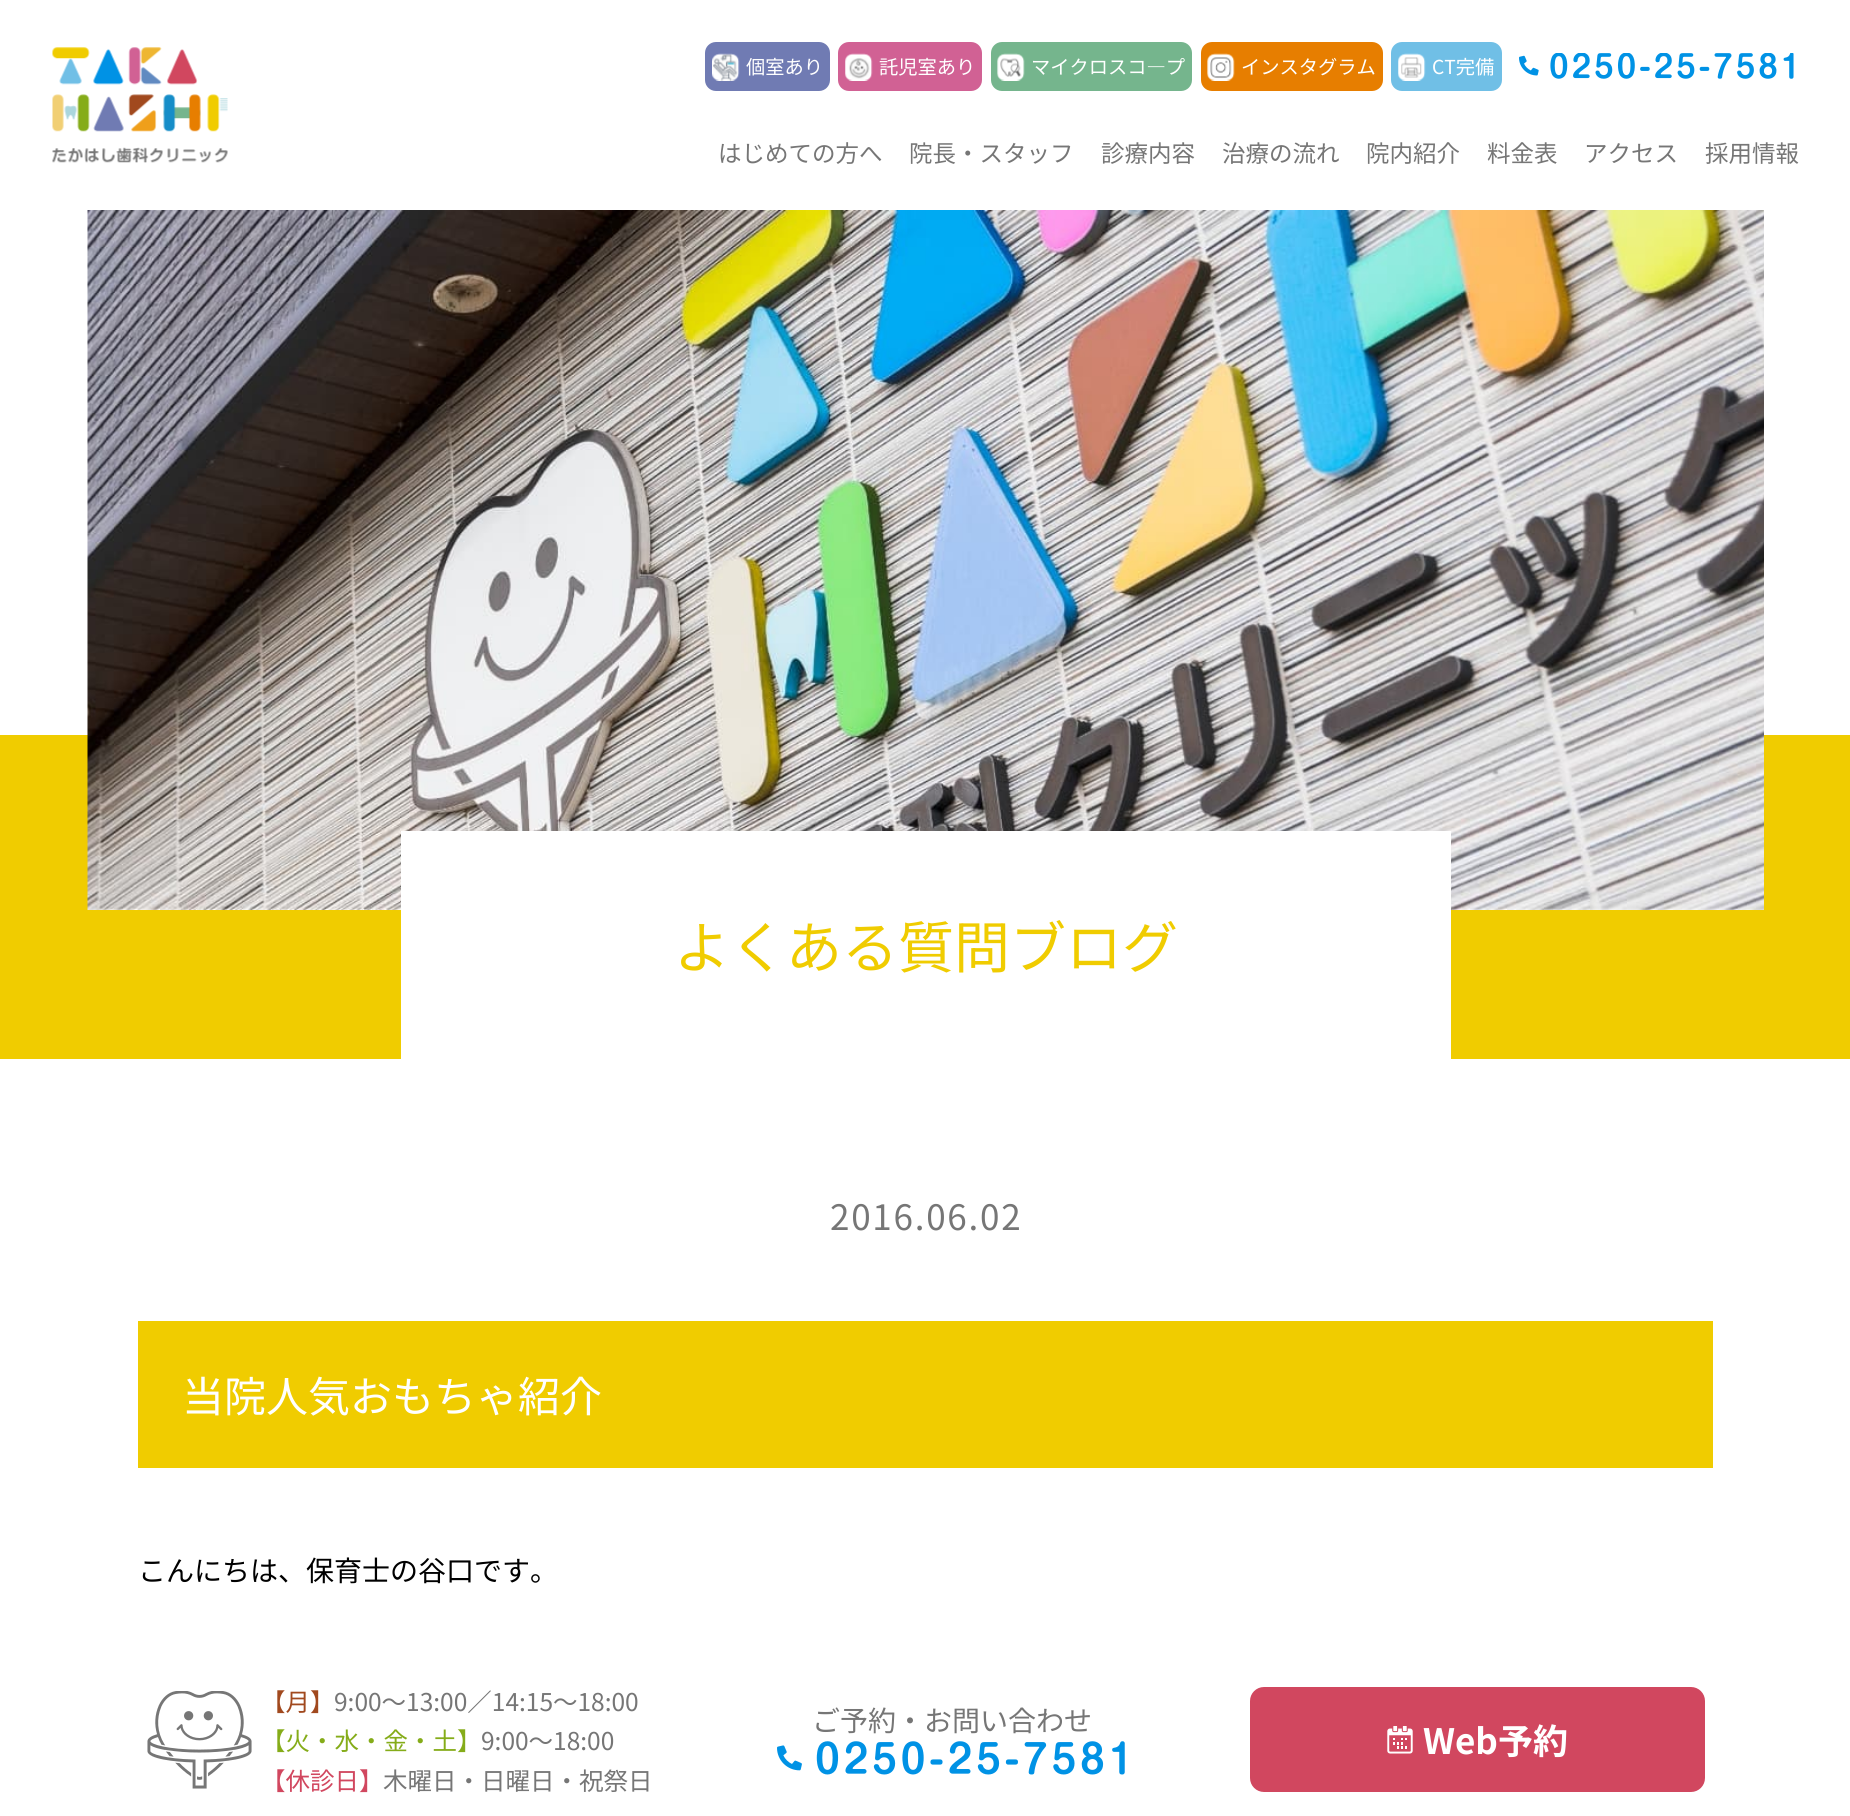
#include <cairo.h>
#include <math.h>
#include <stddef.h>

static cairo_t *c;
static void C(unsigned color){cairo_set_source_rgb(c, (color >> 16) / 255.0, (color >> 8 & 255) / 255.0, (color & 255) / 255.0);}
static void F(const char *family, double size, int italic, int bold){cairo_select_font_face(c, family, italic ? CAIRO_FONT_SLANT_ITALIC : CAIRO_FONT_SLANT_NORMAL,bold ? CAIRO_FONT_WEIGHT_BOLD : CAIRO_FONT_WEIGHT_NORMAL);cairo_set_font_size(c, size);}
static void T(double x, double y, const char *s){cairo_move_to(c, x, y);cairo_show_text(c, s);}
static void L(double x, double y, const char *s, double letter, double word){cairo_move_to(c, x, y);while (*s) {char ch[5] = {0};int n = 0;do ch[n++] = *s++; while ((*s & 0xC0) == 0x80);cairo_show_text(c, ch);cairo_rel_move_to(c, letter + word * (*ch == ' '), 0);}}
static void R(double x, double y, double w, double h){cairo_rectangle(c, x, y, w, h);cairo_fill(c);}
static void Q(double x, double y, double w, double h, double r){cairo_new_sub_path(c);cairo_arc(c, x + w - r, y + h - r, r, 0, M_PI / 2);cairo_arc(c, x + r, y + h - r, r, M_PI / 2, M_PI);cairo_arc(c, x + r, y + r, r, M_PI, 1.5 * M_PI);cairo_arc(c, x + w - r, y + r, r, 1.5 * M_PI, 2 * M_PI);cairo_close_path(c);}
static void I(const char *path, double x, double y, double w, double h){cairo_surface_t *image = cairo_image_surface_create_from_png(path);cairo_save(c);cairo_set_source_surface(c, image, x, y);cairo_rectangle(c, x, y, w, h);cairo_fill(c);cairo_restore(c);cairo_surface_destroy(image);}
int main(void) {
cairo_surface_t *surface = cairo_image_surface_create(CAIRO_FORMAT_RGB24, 1850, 1816);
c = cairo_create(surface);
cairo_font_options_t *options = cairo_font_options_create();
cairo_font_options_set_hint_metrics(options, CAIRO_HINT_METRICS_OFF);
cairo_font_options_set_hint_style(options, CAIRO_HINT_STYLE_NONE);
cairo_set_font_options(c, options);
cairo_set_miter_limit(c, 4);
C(0xffffff);
cairo_paint(c);
I("1.png",52,47,176,116);
C(0x707bb3);
Q(705,42,125,49,11);
cairo_fill(c);
I("2.png",712,53,28,28);
F("Noto Sans JP",19.25,0,0);
C(0xffffff);
T(746,74,"個室あり");
C(0xd16194);
Q(838,42,144,49,11);
cairo_fill(c);
I("3.png",845,53,28,28);
C(0xffffff);
T(879,74,"託児室あり");
C(0x75b58d);
Q(991,42,201,49,11);
cairo_fill(c);
I("4.png",997,53,28,28);
C(0xffffff);
T(1031,74,"マイクロスコ―プ");
C(0xe77e00);
Q(1201,42,182,49,11);
cairo_fill(c);
I("5.png",1207,53,28,28);
C(0xffffff);
T(1241,74,"インスタグラム");
C(0x70bfe6);
Q(1391,42,111,49,11);
cairo_fill(c);
I("6.png",1398,53,28,28);
C(0xffffff);
T(1432,74,"CT完備");
I("7.png",1519,53,275,26);
F("Noto Sans JP",23.5,0,0);
C(0x767676);
T(718,162,"はじめての方へ");
T(909,162,"院長・スタッフ");
T(1101,162,"診療内容");
T(1222,162,"治療の流れ");
T(1366,162,"院内紹介");
T(1487,162,"料金表");
T(1584,162,"アクセス");
T(1705,162,"採用情報");
C(0xf0cc00);
R(0,735,1850,324);
I("8.png",87,210,1677,700);
C(0xffffff);
R(401,831,1050,228);
F("Noto Sans JP",56,0,0);
C(0xf0cc00);
T(674,968,"よくある質問ブログ");
F("Noto Sans JP",35,0,0);
C(0x767676);
L(830,1230,"2016.06.02",1.75,0);
C(0xf0cc00);
R(138,1321,1575,147);
F("Noto Sans JP",42,0,0);
C(0xffffff);
T(182,1412,"当院人気おもちゃ紹介");
F("Noto Sans JP",28,0,0);
C(0x000000);
T(138,1581,"こんにちは、保育士の谷口です。");
I("9.png",147,1691,105,98);
F("Noto Sans JP",24.5,0,0);
C(0xa1491e);
T(261,1711,"【月】");
C(0x767676);
T(334,1711,"9:00～13:00／14:15～18:00");
C(0x85ac19);
T(261,1750,"【火・水・金・土】");
C(0x767676);
T(481,1750,"9:00～18:00");
C(0xd1475f);
T(261,1790,"【休診日】");
C(0x767676);
T(383,1790,"木曜日・日曜日・祝祭日");
F("Noto Sans JP",28,0,0);
T(812,1731,"ご予約・お問い合わせ");
I("10.png",777,1741,348,34);
C(0xd1475f);
Q(1252,1689,451,101,12);
cairo_fill_preserve(c);
cairo_set_line_width(c,4);
cairo_stroke(c);
I("11.png",1387,1726,26,28);
F("Noto Sans JP",35,0,1);
C(0xffffff);
T(1423,1754,"Web予約");
cairo_surface_write_to_png(surface, "o.png");
cairo_font_options_destroy(options);
cairo_destroy(c);
cairo_surface_destroy(surface);
return 0;
}
